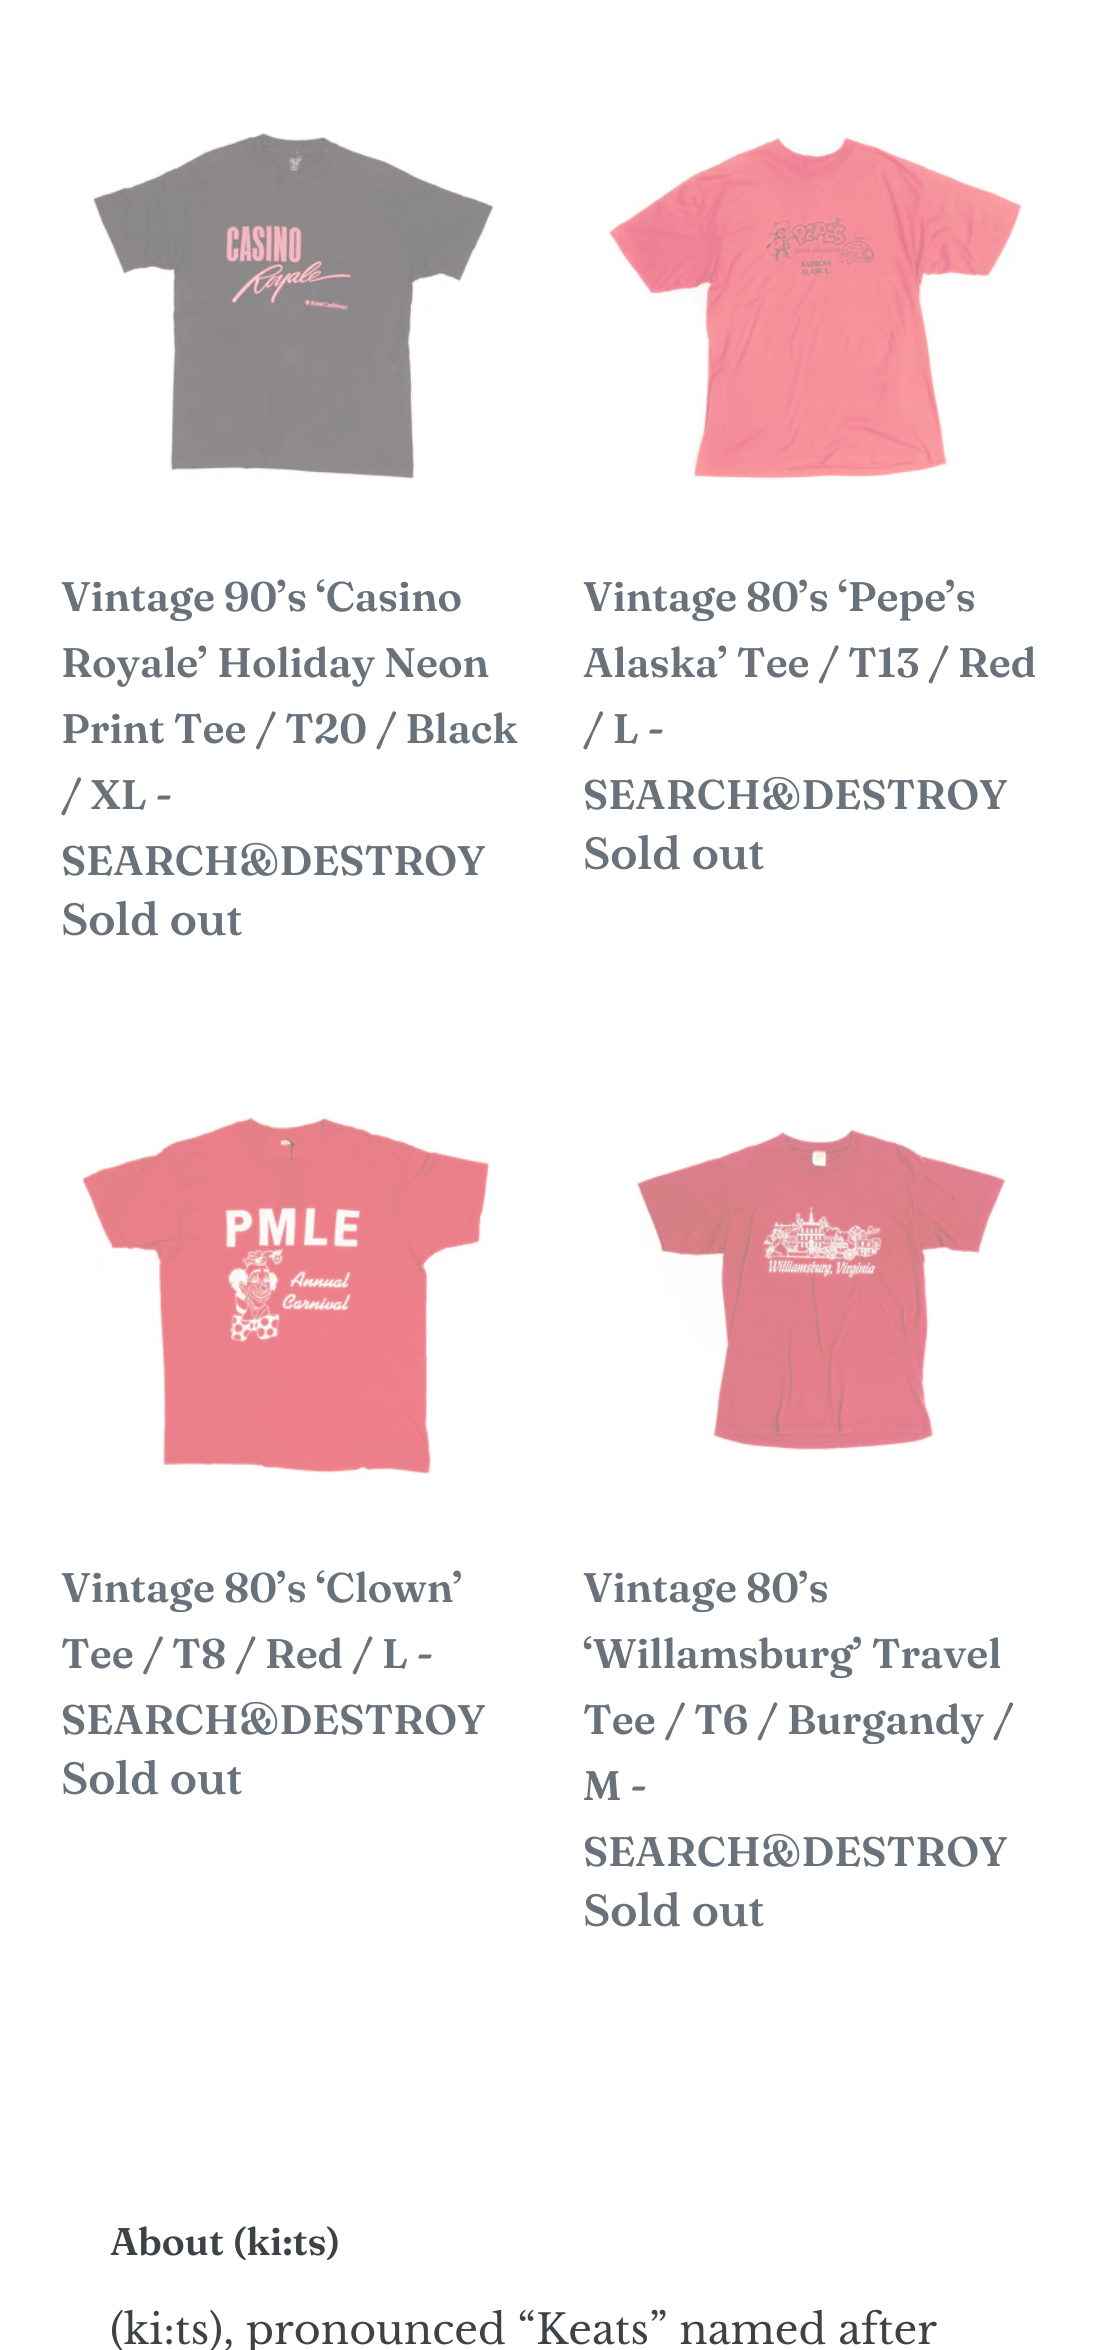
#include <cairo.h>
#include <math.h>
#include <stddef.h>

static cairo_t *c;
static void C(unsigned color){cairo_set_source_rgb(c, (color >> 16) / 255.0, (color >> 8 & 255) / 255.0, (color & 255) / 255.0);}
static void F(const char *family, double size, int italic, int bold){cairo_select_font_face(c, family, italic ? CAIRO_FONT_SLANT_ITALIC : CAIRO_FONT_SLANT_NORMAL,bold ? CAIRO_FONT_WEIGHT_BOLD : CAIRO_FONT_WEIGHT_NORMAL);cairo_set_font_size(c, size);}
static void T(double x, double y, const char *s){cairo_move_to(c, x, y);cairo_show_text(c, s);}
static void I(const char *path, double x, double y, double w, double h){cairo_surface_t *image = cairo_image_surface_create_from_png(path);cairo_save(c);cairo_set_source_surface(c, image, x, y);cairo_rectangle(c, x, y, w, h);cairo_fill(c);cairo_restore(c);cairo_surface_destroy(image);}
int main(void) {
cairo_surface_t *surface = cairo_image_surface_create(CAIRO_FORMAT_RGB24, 1104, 2350);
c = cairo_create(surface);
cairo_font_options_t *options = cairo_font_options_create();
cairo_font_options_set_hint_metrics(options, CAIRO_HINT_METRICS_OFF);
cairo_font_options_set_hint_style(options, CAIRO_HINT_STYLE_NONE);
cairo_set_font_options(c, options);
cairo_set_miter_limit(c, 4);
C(0xffffff);
cairo_paint(c);
I("1.png",92,133,402,346);
F("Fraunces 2 SemiBold",41.25,0,0);
C(0x69727b);
T(61,611,"Vintage 90’s ‘Casino");
T(61,677,"Royale’ Holiday Neon");
T(61,743,"Print Tee / T20 / Black");
T(61,809,"/ XL -");
T(61,875,"SEARCH&DESTROY");
F("Libre Baskerville",41.25,0,1);
T(61,935,"Sold out");
I("2.png",608,135,416,345);
F("Fraunces 2 SemiBold",41.25,0,0);
T(583,611,"Vintage 80’s ‘Pepe’s");
T(583,677,"Alaska’ Tee / T13 / Red");
T(583,743,"/ L -");
T(583,809,"SEARCH&DESTROY");
F("Libre Baskerville",41.25,0,1);
T(583,869,"Sold out");
I("3.png",82,1116,410,362);
F("Fraunces 2 SemiBold",41.25,0,0);
T(61,1602,"Vintage 80’s ‘Clown’");
T(61,1668,"Tee / T8 / Red / L -");
T(61,1734,"SEARCH&DESTROY");
F("Libre Baskerville",41.25,0,1);
T(61,1794,"Sold out");
I("4.png",636,1129,370,322);
F("Fraunces 2 SemiBold",41.25,0,0);
T(583,1602,"Vintage 80’s");
T(583,1668,"‘Willamsburg’ Travel");
T(583,1734,"Tee / T6 / Burgandy /");
T(583,1800,"M -");
T(583,1866,"SEARCH&DESTROY");
F("Libre Baskerville",41.25,0,1);
T(583,1926,"Sold out");
F("Fraunces SemiBold",38.5,0,0);
C(0x3d4246);
T(110,2255,"About (ki:ts)");
F("Libre Baskerville",41.25,0,0);
T(110,2344,"(ki:ts), pronounced “Keats” named after");
cairo_surface_write_to_png(surface, "o.png");
cairo_font_options_destroy(options);
cairo_destroy(c);
cairo_surface_destroy(surface);
return 0;
}
